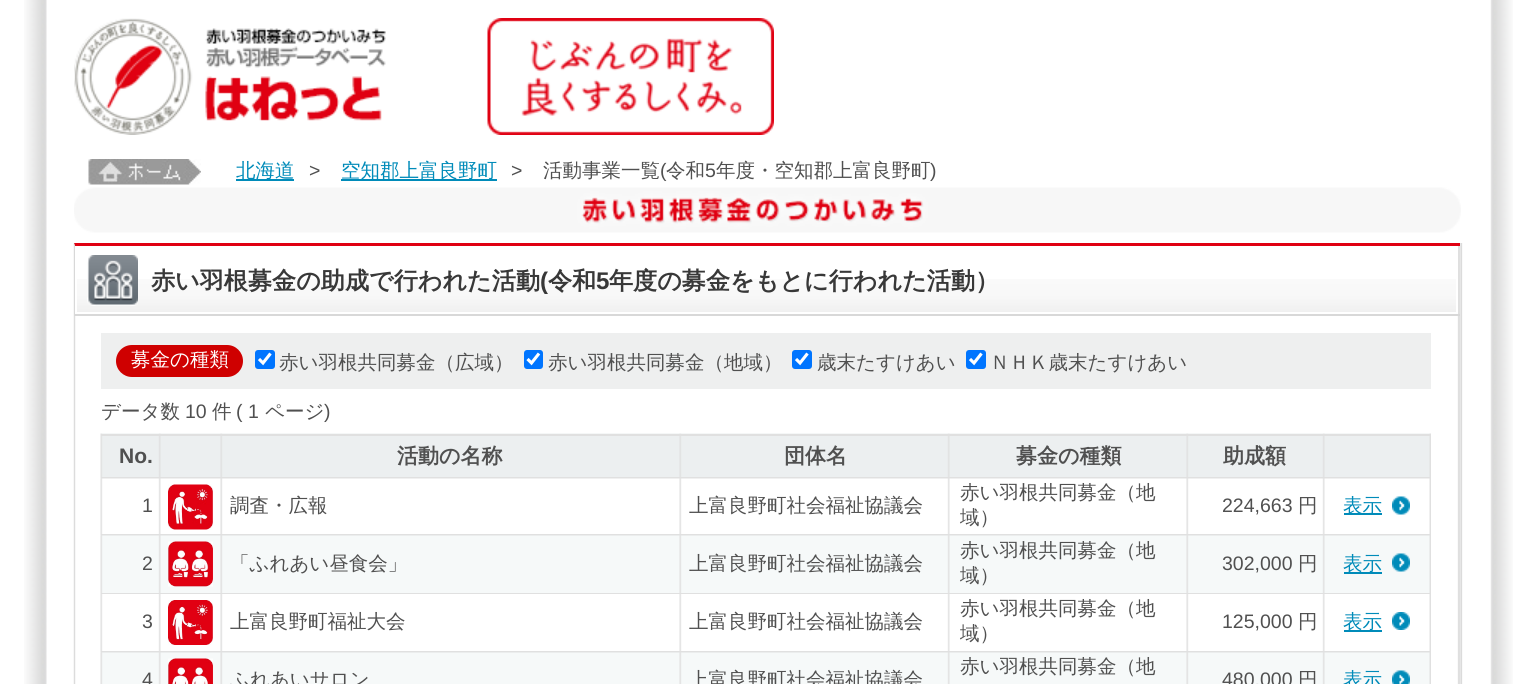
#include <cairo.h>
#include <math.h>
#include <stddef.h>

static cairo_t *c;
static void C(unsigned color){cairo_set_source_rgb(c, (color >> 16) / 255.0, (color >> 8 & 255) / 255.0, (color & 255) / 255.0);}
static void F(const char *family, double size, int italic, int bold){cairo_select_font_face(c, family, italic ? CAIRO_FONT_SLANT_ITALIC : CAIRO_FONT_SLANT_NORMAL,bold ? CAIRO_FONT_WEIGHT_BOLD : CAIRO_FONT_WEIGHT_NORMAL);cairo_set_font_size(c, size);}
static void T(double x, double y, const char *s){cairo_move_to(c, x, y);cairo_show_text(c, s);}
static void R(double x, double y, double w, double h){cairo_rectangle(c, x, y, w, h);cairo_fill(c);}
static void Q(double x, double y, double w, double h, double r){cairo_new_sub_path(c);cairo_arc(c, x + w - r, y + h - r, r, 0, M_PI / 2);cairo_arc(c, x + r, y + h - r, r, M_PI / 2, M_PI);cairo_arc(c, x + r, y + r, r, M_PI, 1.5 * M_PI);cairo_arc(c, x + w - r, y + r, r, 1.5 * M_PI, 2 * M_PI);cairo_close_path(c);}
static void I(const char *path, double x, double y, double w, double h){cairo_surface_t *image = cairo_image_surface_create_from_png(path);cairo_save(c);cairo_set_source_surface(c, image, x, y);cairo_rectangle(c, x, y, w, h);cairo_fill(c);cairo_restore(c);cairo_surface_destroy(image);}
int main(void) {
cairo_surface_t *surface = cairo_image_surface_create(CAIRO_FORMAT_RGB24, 1534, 684);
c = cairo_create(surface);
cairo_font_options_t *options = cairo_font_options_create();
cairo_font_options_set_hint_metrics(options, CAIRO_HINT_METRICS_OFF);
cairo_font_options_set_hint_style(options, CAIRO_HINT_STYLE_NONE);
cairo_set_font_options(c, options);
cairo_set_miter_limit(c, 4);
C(0xffffff);
cairo_paint(c);
I("1.png",24,0,1489,684);
I("2.png",74,18,312,117);
I("3.png",487,18,287,117);
I("4.png",88,159,113,26);
C(0x008bb9);
R(236,179,58,2);
F("WenQuanYi Zen Hei Medium",19.5,0,0);
T(236,177,"北海道");
F("Liberation Sans",19.5,0,0);
C(0x505050);
T(309,177,">");
C(0x008bb9);
R(341,179,156,2);
F("WenQuanYi Zen Hei Medium",19.5,0,0);
T(341,177,"空知郡上富良野町");
F("Liberation Sans",19.5,0,0);
C(0x505050);
T(511,177,">");
F("WenQuanYi Zen Hei Medium",19.5,0,0);
T(543,177,"活動事業一覧");
F("Liberation Sans",19.5,0,0);
T(660,177,"(");
F("WenQuanYi Zen Hei Medium",19.5,0,0);
T(666,177,"令和");
F("Liberation Sans",19.5,0,0);
T(705,177,"5");
F("WenQuanYi Zen Hei Medium",19.5,0,0);
T(716,177,"年度・空知郡上富良野町");
F("Liberation Sans",19.5,0,0);
T(930,177,")");
I("5.png",74,187,1387,46);
I("6.png",73,243,1390,441);
C(0xe00012);
cairo_new_path(c);
cairo_move_to(c,74,243);
cairo_line_to(c,1460,243);
cairo_line_to(c,1460,246);
cairo_line_to(c,75,246);
cairo_close_path(c);
cairo_fill(c);
C(0xd8d8d8);
R(74,314,1386,2);
cairo_new_path(c);
cairo_move_to(c,74,315);
cairo_line_to(c,74,243);
cairo_line_to(c,75,246);
cairo_line_to(c,75,314);
cairo_close_path(c);
cairo_fill(c);
I("7.png",77,279,1379,33);
cairo_rectangle(c,76,247,1381,66);
C(0xffffff);
cairo_stroke(c);
I("8.png",87,255,51,51);
F("WenQuanYi Zen Hei",24.1,0,1);
C(0x383838);
T(151,289,"赤い羽根募金の助成で行われた活動");
F("Liberation Sans",24.1,0,1);
T(540,289,"(");
F("WenQuanYi Zen Hei",24.1,0,1);
T(548,289,"令和");
F("Liberation Sans",24.1,0,1);
T(596,289,"5");
F("WenQuanYi Zen Hei",24.1,0,1);
T(609,289,"年度の募金をもとに行われた活動）");
C(0xeeefef);
R(101,333,1330,56);
C(0xcf0000);
Q(116,345,127,32,16);
cairo_fill(c);
F("WenQuanYi Zen Hei Medium",19.5,0,0);
C(0xffffff);
T(131,366,"募金の種類");
C(0x0075ff);
Q(255,350,20,19,3);
cairo_fill(c);
cairo_new_path(c);
cairo_move_to(c,259,359);
cairo_line_to(c,263,363);
cairo_line_to(c,270.5,353.5);
C(0xffffff);
cairo_set_line_width(c,3.1);
cairo_stroke(c);
C(0x505050);
T(279,369,"赤い羽根共同募金（広域）");
C(0x0075ff);
Q(524,350,19,19,3);
cairo_fill(c);
cairo_new_path(c);
cairo_move_to(c,527.5,359);
cairo_line_to(c,531.5,363);
cairo_line_to(c,539,353.5);
C(0xffffff);
cairo_stroke(c);
C(0x505050);
T(548,369,"赤い羽根共同募金（地域）");
C(0x0075ff);
Q(792,350,20,19,3);
cairo_fill(c);
cairo_new_path(c);
cairo_move_to(c,796,359);
cairo_line_to(c,800,363);
cairo_line_to(c,807.5,353.5);
C(0xffffff);
cairo_stroke(c);
C(0x505050);
T(817,369,"歳末たすけあい");
C(0x0075ff);
Q(966,350,20,19,3);
cairo_fill(c);
cairo_new_path(c);
cairo_move_to(c,970,359);
cairo_line_to(c,974,363);
cairo_line_to(c,981.5,353.5);
C(0xffffff);
cairo_stroke(c);
C(0x505050);
T(990,369,"ＮＨＫ歳末たすけあい");
T(101,418,"データ数");
F("Liberation Sans",19.5,0,0);
T(185,418,"10");
F("WenQuanYi Zen Hei Medium",19.5,0,0);
T(212,418,"件");
F("Liberation Sans",19.5,0,0);
T(236,418,"( 1");
F("WenQuanYi Zen Hei Medium",19.5,0,0);
T(265,418,"ページ");
F("Liberation Sans",19.5,0,0);
T(324,418,")");
I("9.png",100,433,1331,46);
C(0xe0e0e0);
R(101,434,1330,2);
R(101,477,1330,2);
F("Liberation Sans",21,0,1);
C(0x505050);
T(119,463,"No.");
F("WenQuanYi Zen Hei",21,0,1);
T(397,463,"活動の名称");
T(784,463,"団体名");
T(1016,463,"募金の種類");
T(1223,463,"助成額");
I("10.png",100,478,1331,58);
C(0xe0e0e0);
R(101,534,1330,2);
F("Liberation Sans",19.5,0,0);
C(0x505050);
T(142,512,"1");
I("11.png",168,484,45,46);
F("WenQuanYi Zen Hei Medium",19.5,0,0);
T(230,512,"調査・広報");
T(689,512,"上富良野町社会福祉協議会");
T(960,499,"赤い羽根共同募金（地");
T(960,524,"域）");
F("Liberation Sans",19.5,0,0);
T(1222,512,"224,663");
F("WenQuanYi Zen Hei Medium",19.5,0,0);
T(1298,512,"円");
C(0x008bb9);
R(1344,513,38,2);
T(1343,512,"表示");
I("12.png",1392,496,18,19);
I("13.png",100,535,1331,59);
C(0xe0e0e0);
R(101,593,1330,1);
F("Liberation Sans",19.5,0,0);
C(0x505050);
T(142,570,"2");
I("14.png",168,541,45,46);
F("WenQuanYi Zen Hei Medium",19.5,0,0);
T(230,570,"「ふれあい昼食会」");
T(689,570,"上富良野町社会福祉協議会");
T(960,557,"赤い羽根共同募金（地");
T(960,582,"域）");
F("Liberation Sans",19.5,0,0);
T(1222,570,"302,000");
F("WenQuanYi Zen Hei Medium",19.5,0,0);
T(1298,570,"円");
C(0x008bb9);
R(1344,572,38,2);
T(1343,570,"表示");
I("15.png",1392,553,18,19);
I("16.png",100,594,1331,59);
C(0xe0e0e0);
R(101,651,1330,2);
F("Liberation Sans",19.5,0,0);
C(0x505050);
T(142,628,"3");
I("17.png",168,600,45,45);
F("WenQuanYi Zen Hei Medium",19.5,0,0);
T(230,628,"上富良野町福祉大会");
T(689,628,"上富良野町社会福祉協議会");
T(960,615,"赤い羽根共同募金（地");
T(960,640,"域）");
F("Liberation Sans",19.5,0,0);
T(1222,628,"125,000");
F("WenQuanYi Zen Hei Medium",19.5,0,0);
T(1298,628,"円");
C(0x008bb9);
R(1344,630,38,2);
T(1343,628,"表示");
I("18.png",1392,612,18,18);
I("19.png",100,652,1331,32);
F("Liberation Sans",19.5,0,0);
C(0x505050);
T(142,686,"4");
I("20.png",168,658,45,26);
F("WenQuanYi Zen Hei Medium",19.5,0,0);
T(230,686,"ふれあいサロン");
T(689,686,"上富良野町社会福祉協議会");
T(960,673,"赤い羽根共同募金（地");
F("Liberation Sans",19.5,0,0);
T(1222,686,"480,000");
F("WenQuanYi Zen Hei Medium",19.5,0,0);
T(1298,686,"円");
C(0x008bb9);
T(1343,686,"表示");
I("21.png",1392,670,18,14);
cairo_surface_write_to_png(surface, "o.png");
cairo_font_options_destroy(options);
cairo_destroy(c);
cairo_surface_destroy(surface);
return 0;
}
